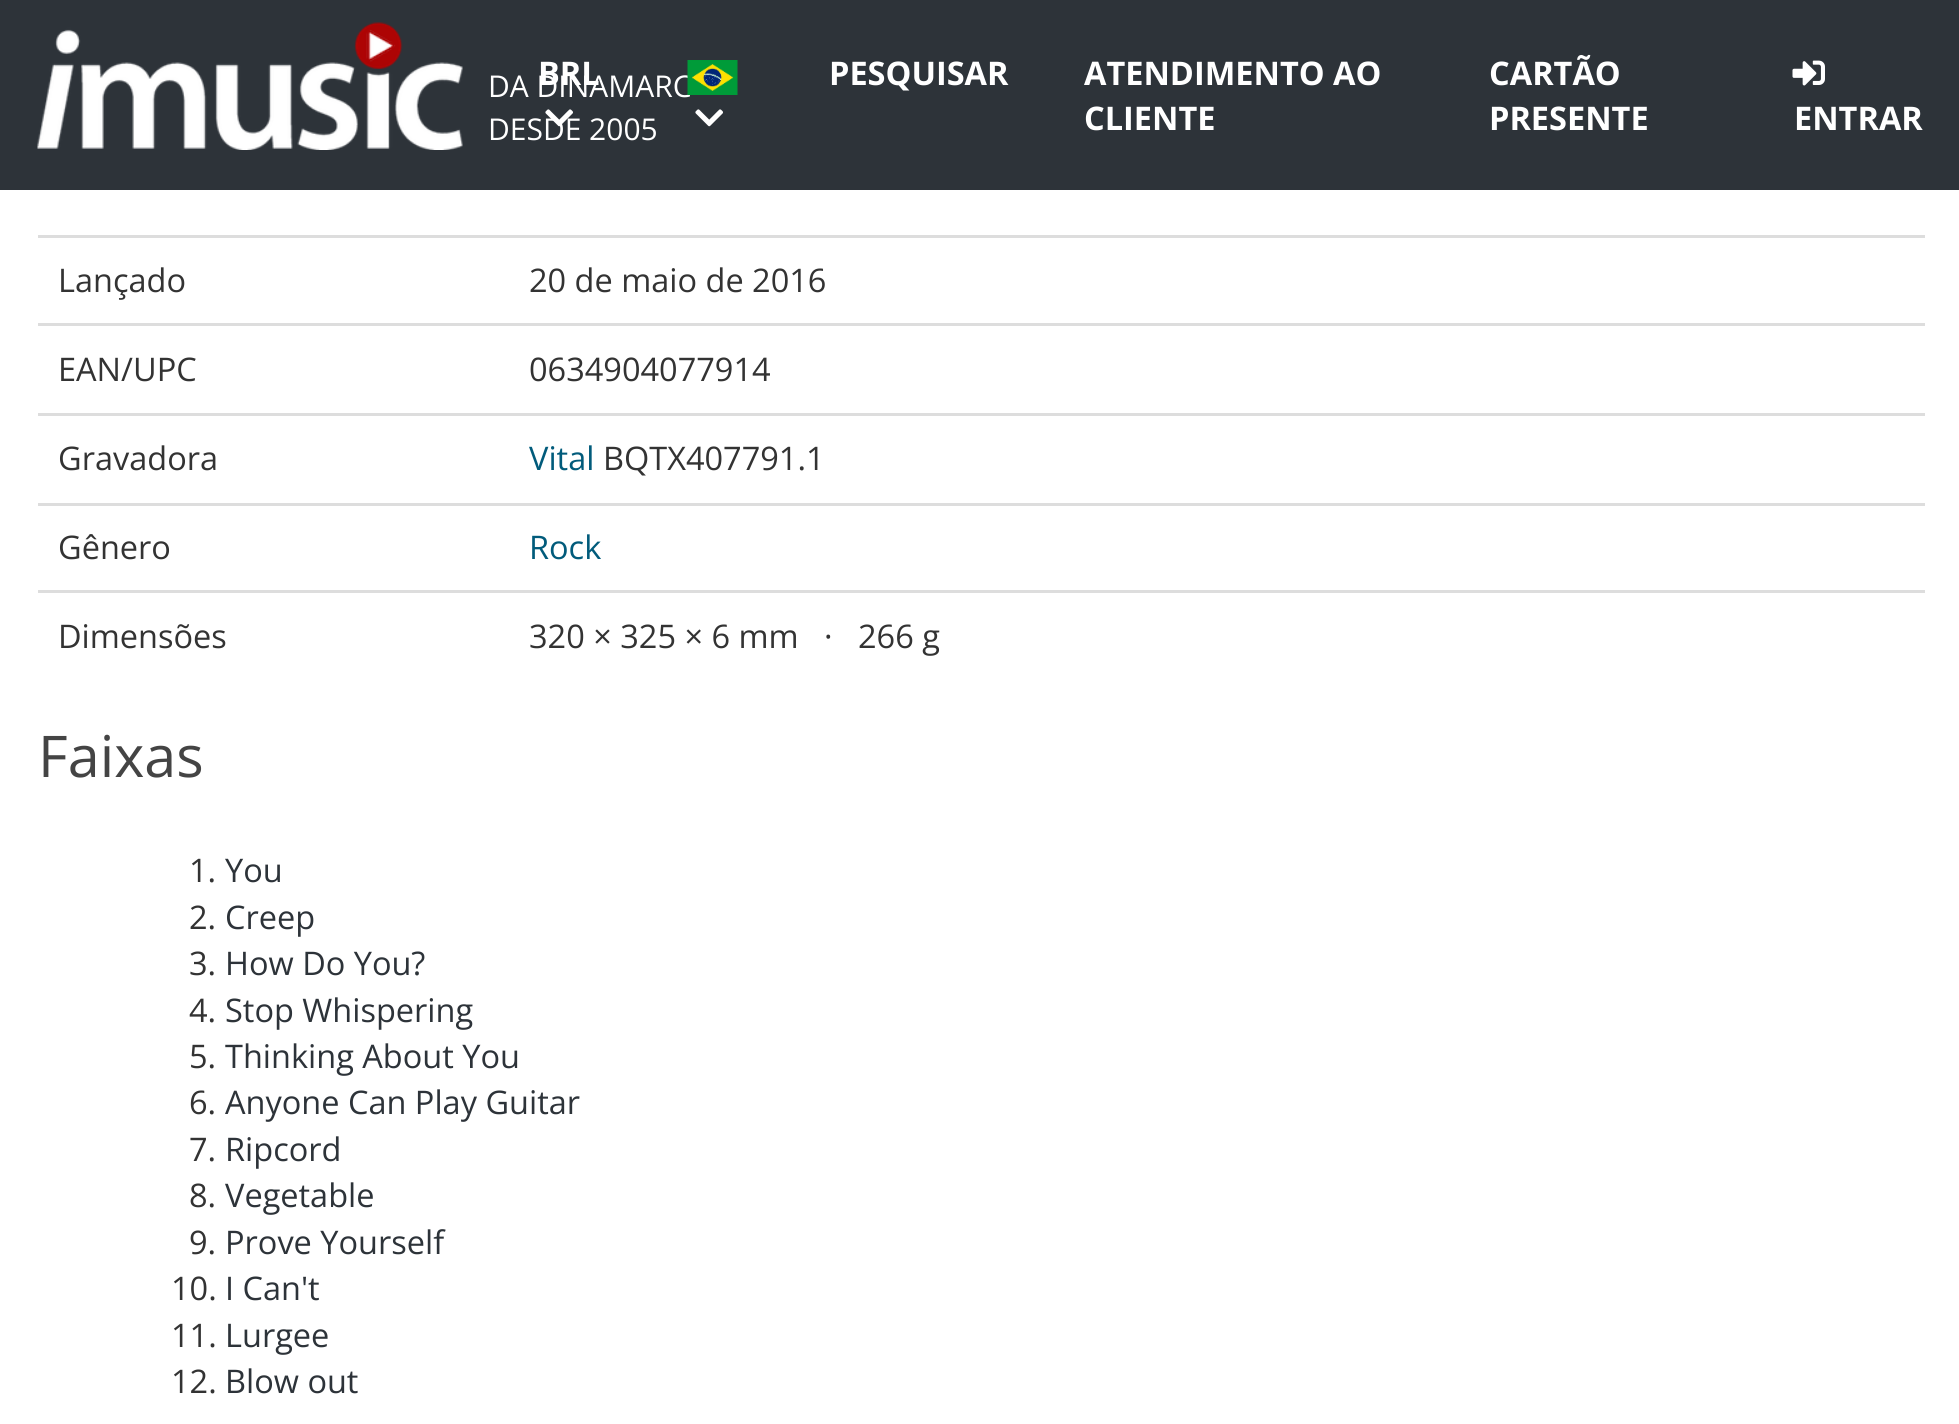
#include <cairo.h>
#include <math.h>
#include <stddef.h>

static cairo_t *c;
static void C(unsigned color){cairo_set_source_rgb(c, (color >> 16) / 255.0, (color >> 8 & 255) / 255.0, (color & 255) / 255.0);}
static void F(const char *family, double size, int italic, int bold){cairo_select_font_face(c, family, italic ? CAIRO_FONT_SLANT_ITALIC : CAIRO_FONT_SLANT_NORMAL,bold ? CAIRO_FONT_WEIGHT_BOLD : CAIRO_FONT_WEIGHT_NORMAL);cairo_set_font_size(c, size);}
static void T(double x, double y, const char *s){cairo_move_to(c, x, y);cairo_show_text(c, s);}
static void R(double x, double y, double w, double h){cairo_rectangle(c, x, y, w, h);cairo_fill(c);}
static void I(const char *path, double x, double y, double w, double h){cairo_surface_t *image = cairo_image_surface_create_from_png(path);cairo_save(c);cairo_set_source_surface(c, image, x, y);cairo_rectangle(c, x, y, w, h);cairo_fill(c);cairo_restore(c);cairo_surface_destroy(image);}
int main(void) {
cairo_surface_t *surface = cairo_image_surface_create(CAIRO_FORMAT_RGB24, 1959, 1424);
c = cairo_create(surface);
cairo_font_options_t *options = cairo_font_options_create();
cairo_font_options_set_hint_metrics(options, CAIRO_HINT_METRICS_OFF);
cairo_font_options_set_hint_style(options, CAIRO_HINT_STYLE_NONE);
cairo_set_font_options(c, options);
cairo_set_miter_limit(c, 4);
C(0xffffff);
cairo_paint(c);
C(0x2d3339);
R(0,0,1959,190);
F("Open Sans",30,0,0);
C(0xffffff);
T(488,97,"DA DINAMARC");
F("Open Sans",32.5,0,1);
T(538,85,"BRL");
F("Open Sans",30,0,0);
T(488,140,"DESDE 2005");
I("1.png",545,109,28,18);
I("2.png",687,60,51,35);
I("3.png",695,109,28,18);
F("Open Sans",32.5,0,1);
T(829,85,"PESQUISAR");
T(1084,85,"ATENDIMENTO AO");
T(1084,130,"CLIENTE");
T(1489,85,"CARTÃO");
T(1489,130,"PRESENTE");
I("4.png",1792,60,33,26);
T(1794,130,"ENTRAR");
I("5.png",37,22,426,128);
F("Open Sans",32.5,0,0);
C(0x333333);
T(58,292,"Lançado");
C(0xdddddd);
R(38,235,1887,3);
C(0x333333);
T(529,292,"20 de maio de 2016");
T(58,381,"EAN/UPC");
C(0xdddddd);
R(38,323,1887,3);
C(0x333333);
T(529,381,"0634904077914");
T(58,470,"Gravadora");
C(0xdddddd);
R(38,413,1887,3);
C(0x015b7b);
T(529,470,"Vital");
C(0x333333);
T(603,470,"BQTX407791.1");
T(58,559,"Gênero");
C(0xdddddd);
R(38,503,1887,3);
C(0x015b7b);
T(529,559,"Rock");
C(0x333333);
T(58,648,"Dimensões");
C(0xdddddd);
R(38,590,1887,3);
C(0x333333);
T(529,648,"320 × 325 × 6 mm");
T(824,648,"·");
T(858,648,"266 g");
F("Open Sans",57.5,0,0);
C(0x444444);
T(38,777,"Faixas");
F("Open Sans",32.5,0,0);
C(0x333333);
T(189,882,"1.");
C(0x2d3339);
T(225,882,"You");
C(0x333333);
T(189,929,"2.");
C(0x2d3339);
T(225,929,"Creep");
C(0x333333);
T(189,975,"3.");
C(0x2d3339);
T(225,975,"How Do You?");
C(0x333333);
T(189,1022,"4.");
C(0x2d3339);
T(225,1022,"Stop Whispering");
C(0x333333);
T(189,1068,"5.");
C(0x2d3339);
T(225,1068,"Thinking About You");
C(0x333333);
T(189,1114,"6.");
C(0x2d3339);
T(225,1114,"Anyone Can Play Guitar");
C(0x333333);
T(189,1161,"7.");
C(0x2d3339);
T(225,1161,"Ripcord");
C(0x333333);
T(189,1207,"8.");
C(0x2d3339);
T(225,1207,"Vegetable");
C(0x333333);
T(189,1254,"9.");
C(0x2d3339);
T(225,1254,"Prove Yourself");
C(0x333333);
T(171,1300,"10.");
C(0x2d3339);
T(225,1300,"I Can't");
C(0x333333);
T(171,1347,"11.");
C(0x2d3339);
T(225,1347,"Lurgee");
C(0x333333);
T(171,1393,"12.");
C(0x2d3339);
T(225,1393,"Blow out");
cairo_surface_write_to_png(surface, "o.png");
cairo_font_options_destroy(options);
cairo_destroy(c);
cairo_surface_destroy(surface);
return 0;
}
